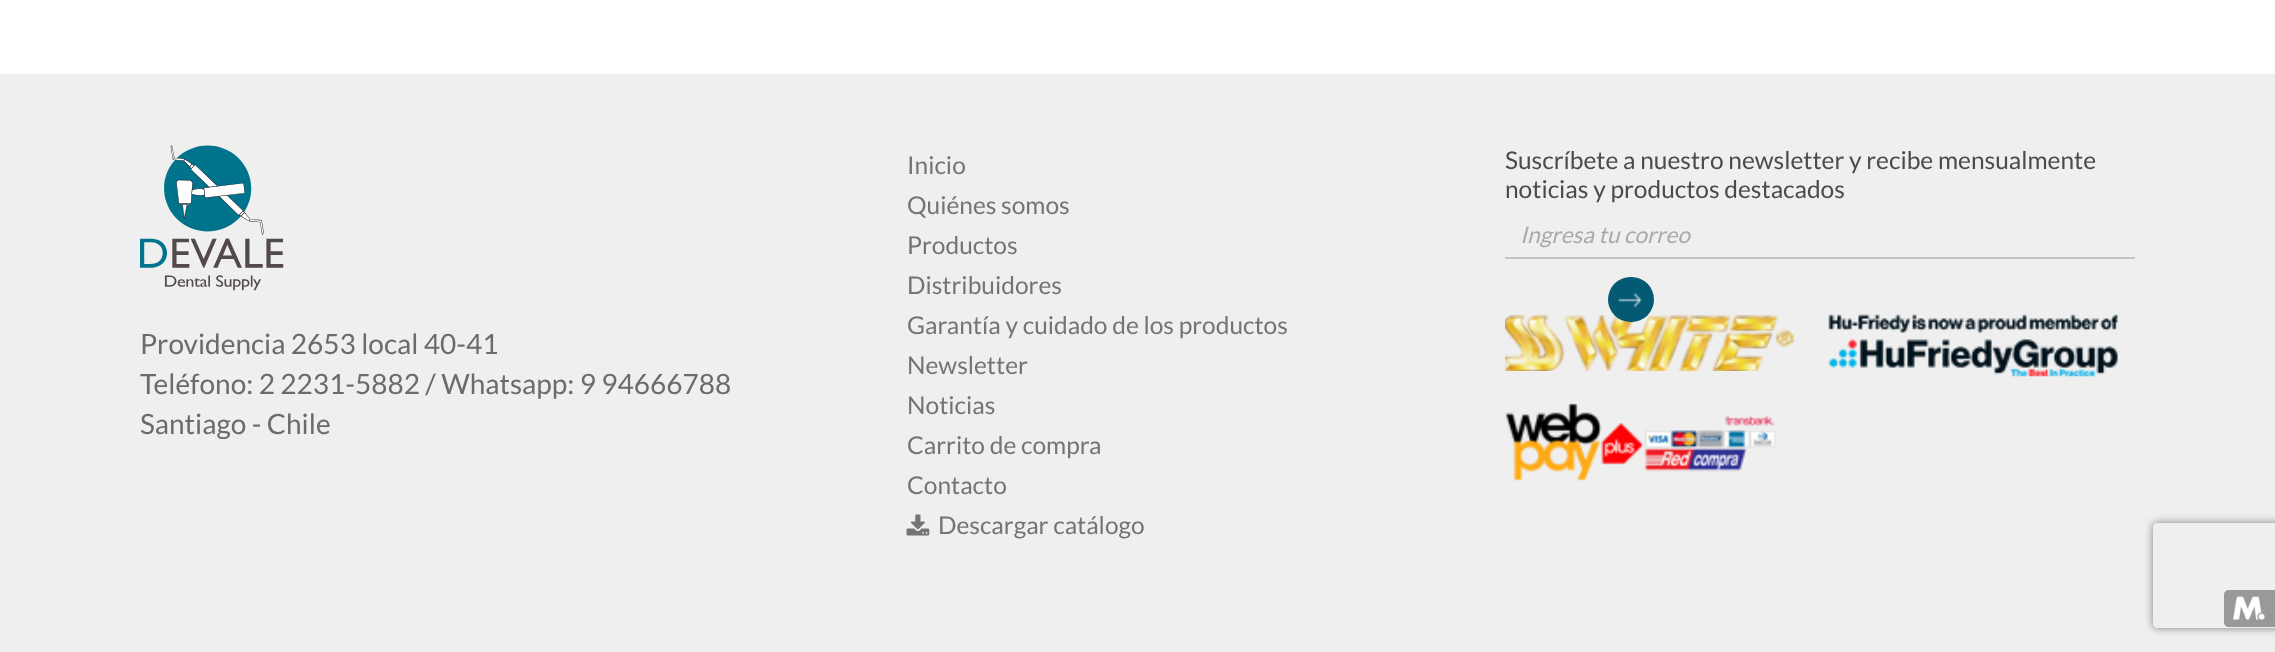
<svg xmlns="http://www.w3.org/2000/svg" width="2275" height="652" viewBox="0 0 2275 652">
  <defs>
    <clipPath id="clip1"><path d="M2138 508H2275V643H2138ZM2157 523H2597C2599 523 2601 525 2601 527V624C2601 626 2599 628 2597 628H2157C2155 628 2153 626 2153 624V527C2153 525 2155 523 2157 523Z" clip-rule="evenodd"/></clipPath>
    <filter id="blur1" x="-50%" y="-200%" width="200%" height="500%"><feGaussianBlur stdDeviation="4.5"/></filter>
  </defs>
  <rect width="100%" height="100%" fill="#ffffff"/>
  <rect x="0" y="74" width="2275" height="578" fill="#efefef"/>
  <image x="140" y="145" width="144" height="146" href="img1.png"/>
  <text x="140" y="354" font-family="Lato" font-size="28" fill="#6b6b6b">Providencia 2653 local 40-41</text>
  <text x="140" y="394" font-family="Lato" font-size="28" fill="#6b6b6b">Teléfono: 2 2231-5882 / Whatsapp: 9 94666788</text>
  <text x="140" y="434" font-family="Lato" font-size="28" fill="#6b6b6b">Santiago - Chile</text>
  <text x="907" y="174" font-family="Lato" font-size="24.5" fill="#747474">Inicio</text>
  <text x="907" y="214" font-family="Lato" font-size="24.5" fill="#747474">Quiénes somos</text>
  <text x="907" y="254" font-family="Lato" font-size="24.5" fill="#747474">Productos</text>
  <text x="907" y="294" font-family="Lato" font-size="24.5" fill="#747474">Distribuidores</text>
  <text x="907" y="334" font-family="Lato" font-size="24.5" fill="#747474">Garantía y cuidado de los productos</text>
  <text x="907" y="374" font-family="Lato" font-size="24.5" fill="#747474">Newsletter</text>
  <text x="907" y="414" font-family="Lato" font-size="24.5" fill="#747474">Noticias</text>
  <text x="907" y="454" font-family="Lato" font-size="24.5" fill="#747474">Carrito de compra</text>
  <text x="907" y="494" font-family="Lato" font-size="24.5" fill="#747474">Contacto</text>
  <image x="906" y="514" width="24" height="22" href="img2.png"/>
  <text x="938" y="534" font-family="Lato" font-size="24.5" fill="#747474">Descargar catálogo</text>
  <text x="1505" y="169" font-family="Lato" font-size="24.5" fill="#4b4b4b">Suscríbete a nuestro newsletter y recibe mensualmente</text>
  <text x="1505" y="198" font-family="Lato" font-size="24.5" fill="#4b4b4b">noticias y productos destacados</text>
  <rect x="1505" y="257" width="630" height="2" fill="#c2c2c2"/>
  <text x="1520" y="243" font-family="Lato" font-size="22.75" font-style="italic" fill="#aaaaaa">Ingresa tu correo</text>
  <image x="1505" y="315" width="289" height="56" href="img4.png"/>
  <rect x="1608" y="277" width="46" height="45" rx="22.5" fill="#055a73"/>
  <image x="1618" y="292" width="24" height="16" href="img3.png"/>
  <image x="1828" y="314" width="290" height="63" href="img5.png"/>
  <image x="1505" y="403" width="271" height="79" href="img6.png"/>
  <g clip-path="url(#clip1)">
    <rect x="2153" y="523" width="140" height="105" rx="4" fill="#808080" filter="url(#blur1)"/>
  </g>
  <path d="M2229 590H2275V627H2229C2226 627 2224 625 2224 622V595C2224 592 2226 590 2229 590Z" fill="#999999"/>
  <image x="2233" y="596" width="32" height="24" href="img7.png"/>
</svg>
